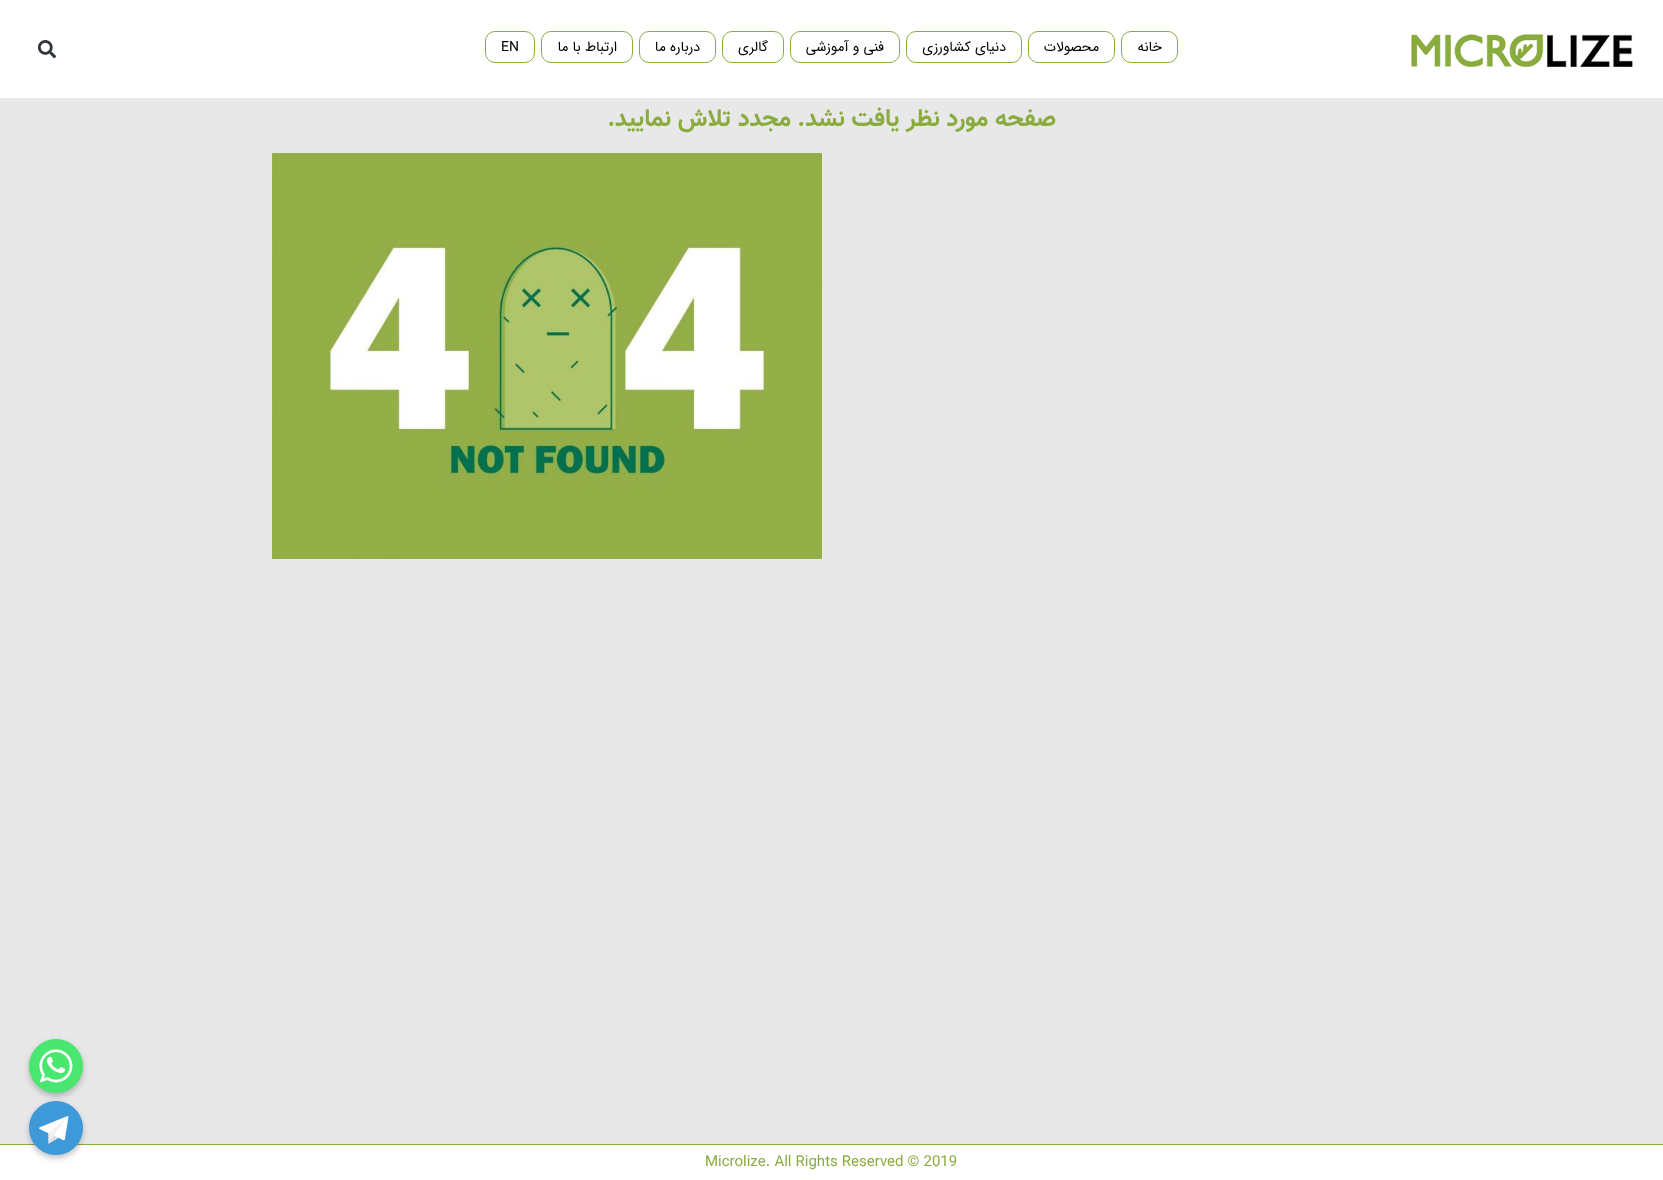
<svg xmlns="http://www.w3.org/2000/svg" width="1663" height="1180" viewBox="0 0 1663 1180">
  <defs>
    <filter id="blur1" x="-50%" y="-200%" width="200%" height="500%"><feGaussianBlur stdDeviation="3"/></filter>
  </defs>
  <rect width="100%" height="100%" fill="#ffffff"/>
  <image x="1411" y="34" width="222" height="33" href="img1.png"/>
  <rect x="1121.5" y="31.5" width="56" height="31" rx="9.5" fill="none" stroke="#8aac3f"/>
  <text x="1162" y="51" font-family="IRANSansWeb" font-size="14" direction="rtl" fill="#000000">خانه</text>
  <rect x="1028.5" y="31.5" width="86" height="31" rx="9.5" fill="none" stroke="#8aac3f"/>
  <text x="1099" y="51" font-family="IRANSansWeb" font-size="14" direction="rtl" fill="#000000">محصولات</text>
  <rect x="906.5" y="31.5" width="115" height="31" rx="9.5" fill="none" stroke="#8aac3f"/>
  <text x="1006" y="51" font-family="IRANSansWeb" font-size="14" direction="rtl" fill="#000000">دنیای کشاورزی</text>
  <rect x="790.5" y="31.5" width="109" height="31" rx="9.5" fill="none" stroke="#8aac3f"/>
  <text x="884" y="51" font-family="IRANSansWeb" font-size="14" direction="rtl" fill="#000000">فنی و آموزشی</text>
  <rect x="722.5" y="31.5" width="61" height="31" rx="9.5" fill="none" stroke="#8aac3f"/>
  <text x="768" y="51" font-family="IRANSansWeb" font-size="14" direction="rtl" fill="#000000">گالری</text>
  <rect x="639.5" y="31.5" width="76" height="31" rx="9.5" fill="none" stroke="#8aac3f"/>
  <text x="700" y="51" font-family="IRANSansWeb" font-size="14" direction="rtl" fill="#000000">درباره ما</text>
  <rect x="541.5" y="31.5" width="91" height="31" rx="9.5" fill="none" stroke="#8aac3f"/>
  <text x="617" y="51" font-family="IRANSansWeb" font-size="14" direction="rtl" fill="#000000">ارتباط با ما</text>
  <rect x="485.5" y="31.5" width="49" height="31" rx="9.5" fill="none" stroke="#8aac3f"/>
  <text x="501" y="51" font-family="IRANSansWeb" font-size="14" fill="#000000">EN</text>
  <image x="37" y="40" width="19" height="19" href="img2.png"/>
  <rect x="0" y="98" width="1663" height="1046" fill="#e8e8e8"/>
  <text x="1056" y="126" font-family="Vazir" font-size="24.5" font-weight="bold" direction="rtl" fill="#8aac3f">صفحه مورد نظر یافت نشد. مجدد تلاش نمایید.</text>
  <image x="272" y="153" width="550" height="406" href="img3.png"/>
  <rect x="0" y="1144" width="1663" height="1" fill="#8aac3f"/>
  <text x="705" y="1166" font-family="Vazir" font-size="15" fill="#8aac3f">Microlize. All Rights Reserved © 2019</text>
  <rect x="29" y="1042" width="54" height="54" rx="27" fill="#000000" fill-opacity="0.25" filter="url(#blur1)"/>
  <image x="29" y="1039" width="54" height="54" href="img4.png"/>
  <rect x="29" y="1104" width="54" height="54" rx="27" fill="#000000" fill-opacity="0.25" filter="url(#blur1)"/>
  <image x="29" y="1101" width="54" height="54" href="img5.png"/>
</svg>
